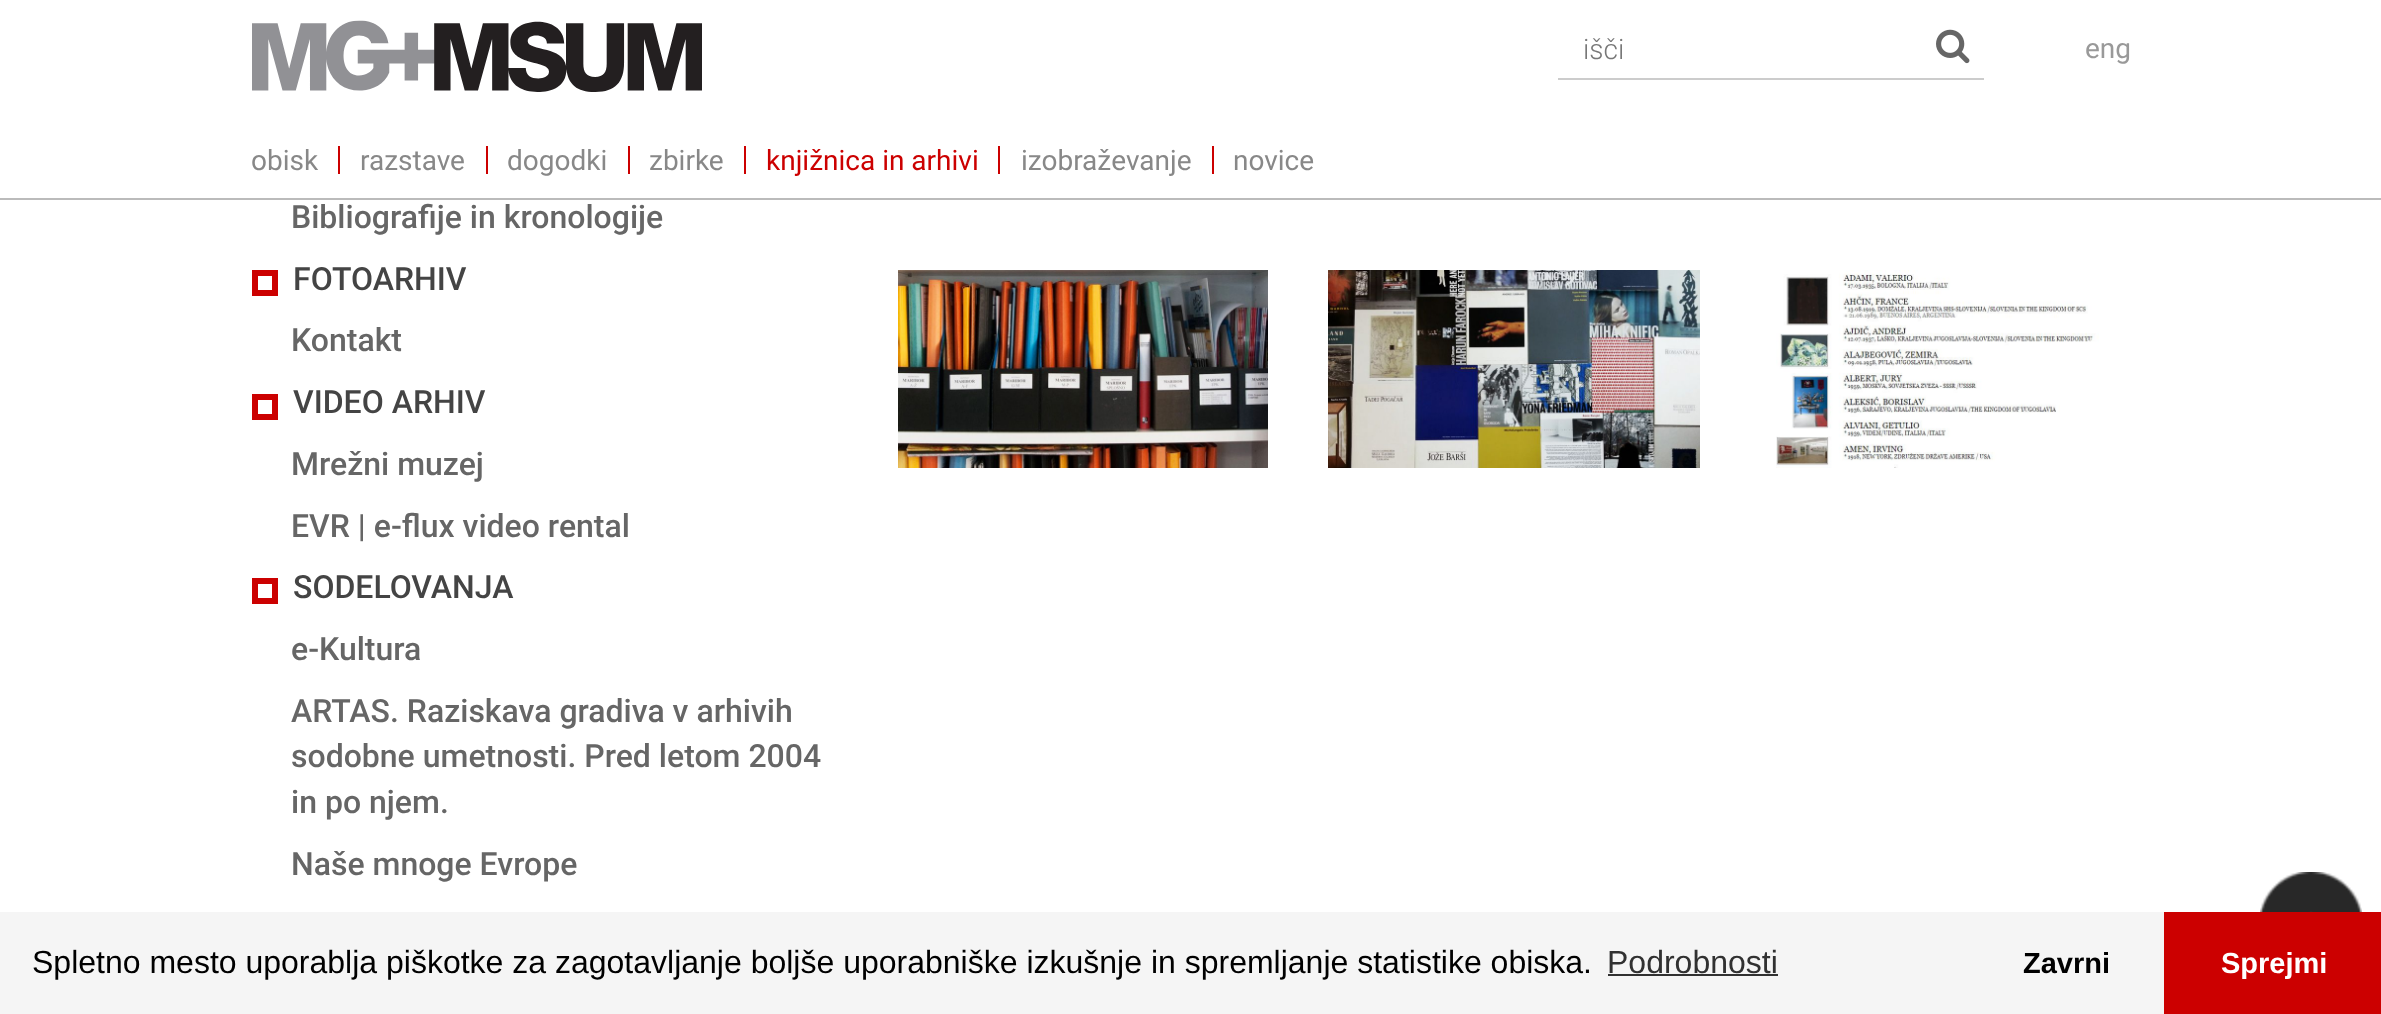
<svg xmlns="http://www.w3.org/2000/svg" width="2381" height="1014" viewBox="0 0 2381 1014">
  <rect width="100%" height="100%" fill="#ffffff"/>
  <rect x="0" y="198" width="2381" height="2" fill="#bbbbbb"/>
  <image x="252" y="20" width="450" height="72" href="img1.png"/>
  <rect x="1558" y="78" width="426" height="2" fill="#cccccc"/>
  <text x="1583" y="59" font-family="Roboto" font-size="28" font-weight="300" fill="#777777">išči</text>
  <image x="1936" y="29" width="34" height="35" href="img2.png"/>
  <text x="2085" y="58" font-family="Roboto" font-size="28" fill="#999999">eng</text>
  <rect x="338" y="146" width="2" height="28" fill="#cc0000"/>
  <text x="251" y="170" font-family="Roboto" font-size="28" fill="#888888">obisk</text>
  <rect x="486" y="146" width="2" height="28" fill="#cc0000"/>
  <text x="360" y="170" font-family="Roboto" font-size="28" fill="#888888">razstave</text>
  <rect x="628" y="146" width="2" height="28" fill="#cc0000"/>
  <text x="507" y="170" font-family="Roboto" font-size="28" fill="#888888">dogodki</text>
  <rect x="744" y="146" width="2" height="28" fill="#cc0000"/>
  <text x="649" y="170" font-family="Roboto" font-size="28" fill="#888888">zbirke</text>
  <rect x="998" y="146" width="2" height="28" fill="#cc0000"/>
  <text x="766" y="170" font-family="Roboto" font-size="28" fill="#cc0000">knjižnica in arhivi</text>
  <rect x="1212" y="146" width="2" height="28" fill="#cc0000"/>
  <text x="1021" y="170" font-family="Roboto" font-size="28" fill="#888888">izobraževanje</text>
  <text x="1233" y="170" font-family="Roboto" font-size="28" fill="#888888">novice</text>
  <text x="291" y="228" font-family="Roboto" font-size="32" font-weight="500" fill="#666666">Bibliografije in kronologije</text>
  <rect x="255" y="273" width="20" height="20" fill="none" stroke="#cc0000" stroke-width="6"/>
  <text x="293" y="290" font-family="Roboto" font-size="32" font-weight="500" fill="#444444">FOTOARHIV</text>
  <text x="291" y="351" font-family="Roboto" font-size="32" font-weight="500" fill="#666666">Kontakt</text>
  <rect x="255" y="397" width="20" height="20" fill="none" stroke="#cc0000" stroke-width="6"/>
  <text x="293" y="413" font-family="Roboto" font-size="32" font-weight="500" fill="#444444">VIDEO ARHIV</text>
  <text x="291" y="475" font-family="Roboto" font-size="32" font-weight="500" fill="#666666">Mrežni muzej</text>
  <text x="291" y="537" font-family="Roboto" font-size="32" font-weight="500" fill="#666666">EVR | e-flux video rental</text>
  <rect x="255" y="581" width="20" height="20" fill="none" stroke="#cc0000" stroke-width="6"/>
  <text x="293" y="598" font-family="Roboto" font-size="32" font-weight="500" fill="#444444">SODELOVANJA</text>
  <text x="291" y="660" font-family="Roboto" font-size="32" font-weight="500" fill="#666666">e-Kultura</text>
  <text x="291" y="722" font-family="Roboto" font-size="32" font-weight="500" fill="#666666">ARTAS. Raziskava gradiva v arhivih</text>
  <text x="291" y="767" font-family="Roboto" font-size="32" font-weight="500" fill="#666666">sodobne umetnosti. Pred letom 2004</text>
  <text x="291" y="813" font-family="Roboto" font-size="32" font-weight="500" fill="#666666">in po njem.</text>
  <text x="291" y="875" font-family="Roboto" font-size="32" font-weight="500" fill="#666666">Naše mnoge Evrope</text>
  <image x="898" y="270" width="370" height="198" href="img3.png"/>
  <image x="1328" y="270" width="372" height="198" href="img4.png"/>
  <image x="1776" y="270" width="323" height="198" href="img5.png"/>
  <image x="2260" y="872" width="102" height="40" href="img6.png"/>
  <rect x="0" y="912" width="2164" height="102" fill="#f5f5f5"/>
  <text x="32" y="973" font-family="Liberation Sans" font-size="32" fill="#000000">Spletno mesto uporablja piškotke za zagotavljanje boljše uporabniške izkušnje in spremljanje statistike obiska.</text>
  <text x="1607" y="973" font-family="Liberation Sans" font-size="32" fill="#313131">Podrobnosti</text>
  <rect x="1608" y="974" width="170" height="2" fill="#313131"/>
  <text x="2023" y="973" font-family="Liberation Sans" font-size="29" font-weight="bold" fill="#000000">Zavrni</text>
  <rect x="2164" y="912" width="217" height="102" fill="#cc0000"/>
  <text x="2221" y="973" font-family="Liberation Sans" font-size="29" font-weight="bold" fill="#ffffff">Sprejmi</text>
</svg>
